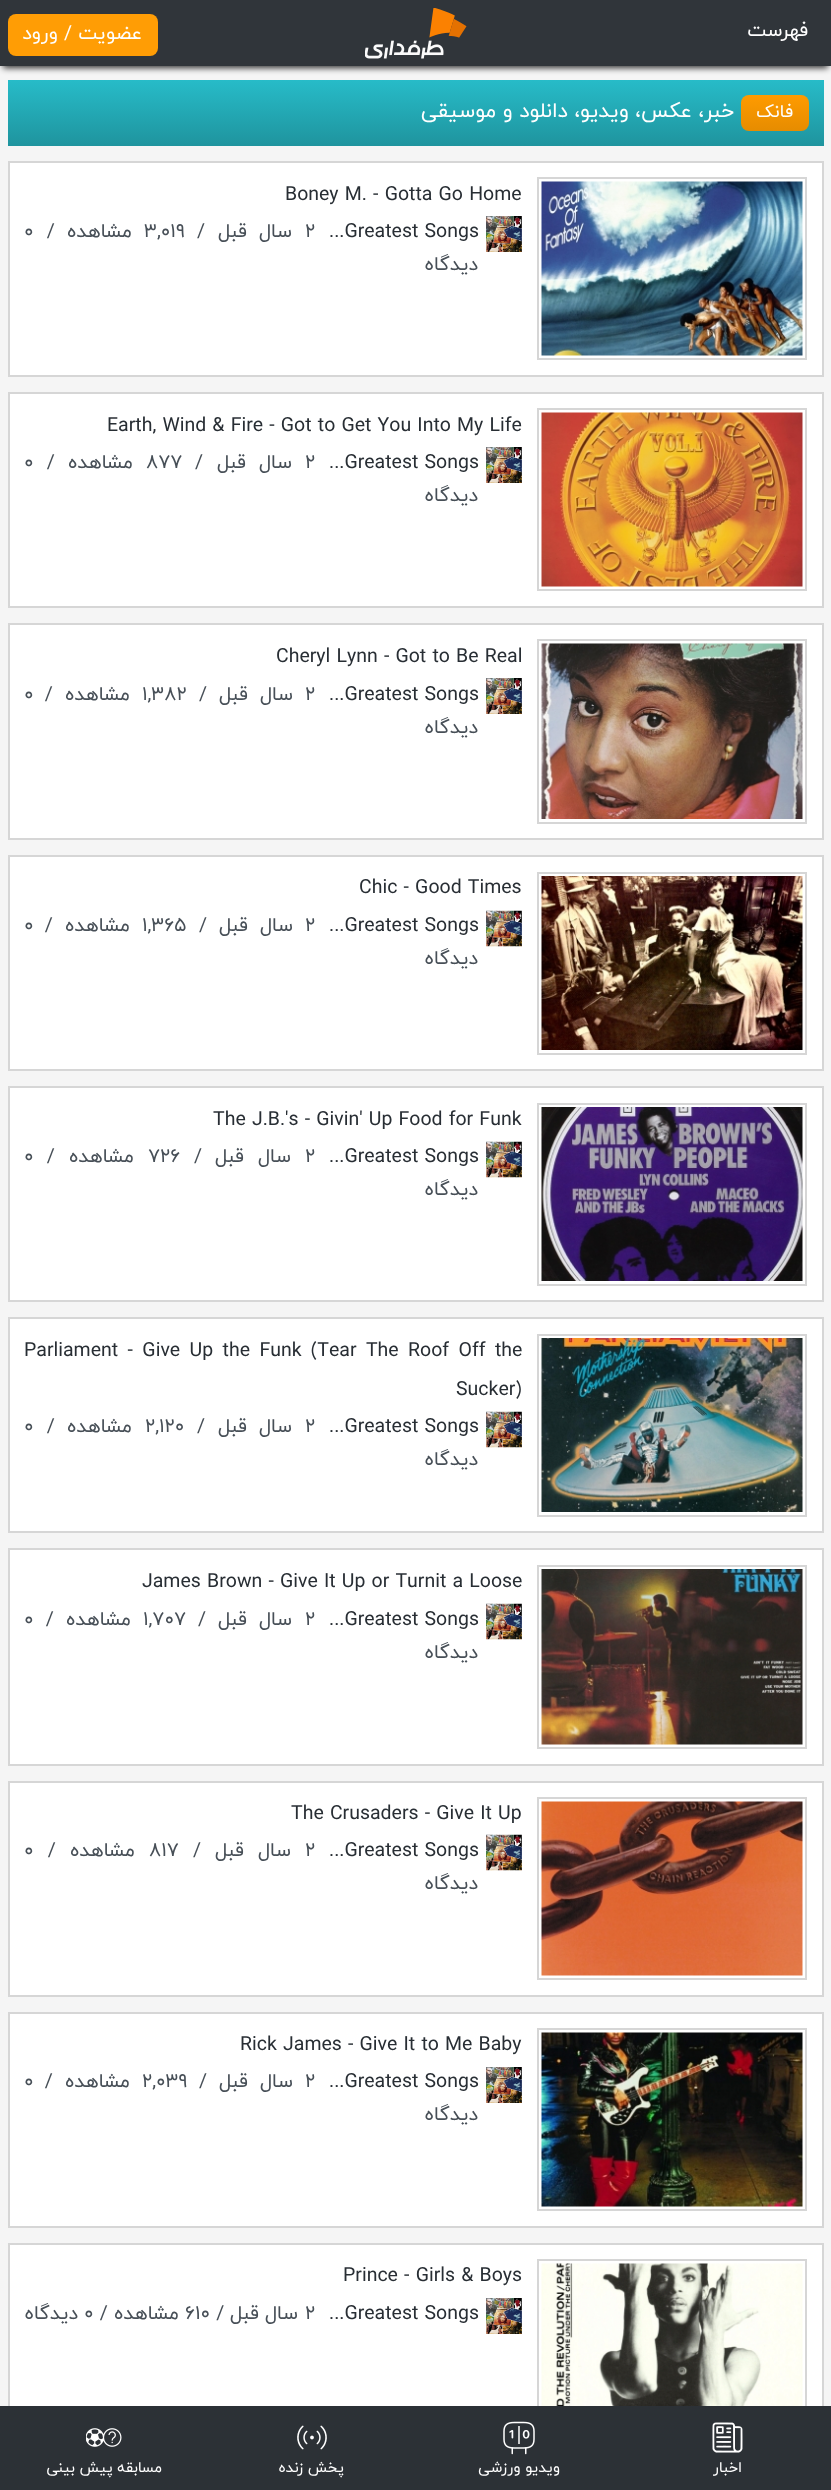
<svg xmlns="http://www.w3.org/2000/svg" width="831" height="2490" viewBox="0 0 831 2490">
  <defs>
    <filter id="blur1" x="-50%" y="-200%" width="200%" height="500%"><feGaussianBlur stdDeviation="3"/></filter>
    <linearGradient id="g1" gradientUnits="userSpaceOnUse" x1="416" y1="79" x2="416" y2="146"><stop offset="0" stop-color="#27bcc9"/><stop offset="1" stop-color="#1f949e"/></linearGradient>
    <linearGradient id="g2" gradientUnits="userSpaceOnUse" x1="775" y1="95" x2="775" y2="131"><stop offset="0" stop-color="#ff9b00"/><stop offset="1" stop-color="#e68c00"/></linearGradient>
  </defs>
  <rect width="100%" height="100%" fill="#f5f5f5"/>
  <rect x="3" y="8" width="825" height="60" fill="#050505" fill-opacity="0.8" filter="url(#blur1)"/>
  <rect x="0" y="0" width="831" height="66" fill="#30353a"/>
  <rect x="8" y="14" width="150" height="42" rx="8" fill="#ff9d05"/>
  <text x="142" y="39" font-family="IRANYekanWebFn" font-size="19.5" direction="rtl" fill="#ffffff">عضویت / ورود</text>
  <image x="365" y="8" width="102" height="51" href="img1.png"/>
  <text x="808" y="36" font-family="IRANYekanWebFn" font-size="19.5" direction="rtl" fill="#ffffff">فهرست</text>
  <rect x="8" y="80" width="816" height="66" fill="url(#g1)"/>
  <text x="734" y="117" font-family="IRANYekanWebFn" font-size="21" direction="rtl" fill="#ffffff">خبر، عکس، ویدیو، دانلود و موسیقی</text>
  <rect x="741" y="95" width="68" height="36" rx="8" fill="url(#g2)"/>
  <text x="793" y="117" font-family="IRANYekanWebFn" font-size="18" direction="rtl" fill="#ffffff">فانک</text>
  <rect x="9" y="162" width="814" height="214" fill="#ffffff" stroke="#d6d6d6" stroke-width="2"/>
  <text x="285" y="200" font-family="IRANYekanWebFn" font-size="19.5" fill="#282e34">Boney M. - Gotta Go Home</text>
  <rect x="538" y="178" width="268" height="181" fill="none" stroke="#d6d6d6" stroke-width="2"/>
  <image x="541" y="181" width="262" height="175" href="img2.png"/>
  <text x="24" y="237" font-family="IRANYekanWebFn" font-size="19.5" fill="#474f57">0</text>
  <text x="132" y="237" word-spacing="6" font-family="IRANYekanWebFn" font-size="19.5" direction="rtl" fill="#474f57">مشاهده /</text>
  <text x="144" y="237" font-family="IRANYekanWebFn" font-size="19.5" fill="#474f57">3,019</text>
  <text x="197" y="237" font-family="IRANYekanWebFn" font-size="19.5" fill="#474f57">/</text>
  <text x="292" y="237" word-spacing="6" font-family="IRANYekanWebFn" font-size="19.5" direction="rtl" fill="#474f57">سال قبل</text>
  <text x="305" y="237" font-family="IRANYekanWebFn" font-size="19.5" fill="#474f57">2</text>
  <text x="329" y="237" font-family="IRANYekanWebFn" font-size="19.5" fill="#282e34">...Greatest Songs</text>
  <image x="486" y="216" width="36" height="36" href="img3.png"/>
  <text x="478" y="270" font-family="IRANYekanWebFn" font-size="19.5" direction="rtl" fill="#474f57">دیدگاه</text>
  <rect x="9" y="393" width="814" height="214" fill="#ffffff" stroke="#d6d6d6" stroke-width="2"/>
  <text x="107" y="431" font-family="IRANYekanWebFn" font-size="19.5" fill="#282e34">Earth, Wind &amp; Fire - Got to Get You Into My Life</text>
  <rect x="538" y="409" width="268" height="181" fill="none" stroke="#d6d6d6" stroke-width="2"/>
  <image x="541" y="412" width="262" height="175" href="img4.png"/>
  <text x="24" y="468" font-family="IRANYekanWebFn" font-size="19.5" fill="#474f57">0</text>
  <text x="133" y="468" word-spacing="7" font-family="IRANYekanWebFn" font-size="19.5" direction="rtl" fill="#474f57">مشاهده /</text>
  <text x="146" y="468" font-family="IRANYekanWebFn" font-size="19.5" fill="#474f57">877</text>
  <text x="195" y="468" font-family="IRANYekanWebFn" font-size="19.5" fill="#474f57">/</text>
  <text x="292" y="468" word-spacing="7" font-family="IRANYekanWebFn" font-size="19.5" direction="rtl" fill="#474f57">سال قبل</text>
  <text x="305" y="468" font-family="IRANYekanWebFn" font-size="19.5" fill="#474f57">2</text>
  <text x="329" y="468" font-family="IRANYekanWebFn" font-size="19.5" fill="#282e34">...Greatest Songs</text>
  <image x="486" y="447" width="36" height="36" href="img3.png"/>
  <text x="478" y="501" font-family="IRANYekanWebFn" font-size="19.5" direction="rtl" fill="#474f57">دیدگاه</text>
  <rect x="9" y="624" width="814" height="215" fill="#ffffff" stroke="#d6d6d6" stroke-width="2"/>
  <text x="276" y="662" font-family="IRANYekanWebFn" font-size="19.5" fill="#282e34">Cheryl Lynn - Got to Be Real</text>
  <rect x="538" y="640" width="268" height="183" fill="none" stroke="#d6d6d6" stroke-width="2"/>
  <image x="541" y="643" width="262" height="176" href="img5.png"/>
  <text x="24" y="700" font-family="IRANYekanWebFn" font-size="19.5" fill="#474f57">0</text>
  <text x="130" y="700" word-spacing="6" font-family="IRANYekanWebFn" font-size="19.5" direction="rtl" fill="#474f57">مشاهده /</text>
  <text x="142" y="700" font-family="IRANYekanWebFn" font-size="19.5" fill="#474f57">1,382</text>
  <text x="199" y="700" font-family="IRANYekanWebFn" font-size="19.5" fill="#474f57">/</text>
  <text x="293" y="700" word-spacing="6" font-family="IRANYekanWebFn" font-size="19.5" direction="rtl" fill="#474f57">سال قبل</text>
  <text x="305" y="700" font-family="IRANYekanWebFn" font-size="19.5" fill="#474f57">2</text>
  <text x="329" y="700" font-family="IRANYekanWebFn" font-size="19.5" fill="#282e34">...Greatest Songs</text>
  <image x="486" y="678" width="36" height="36" href="img3.png"/>
  <text x="478" y="733" font-family="IRANYekanWebFn" font-size="19.5" direction="rtl" fill="#474f57">دیدگاه</text>
  <rect x="9" y="856" width="814" height="214" fill="#ffffff" stroke="#d6d6d6" stroke-width="2"/>
  <text x="359" y="893" font-family="IRANYekanWebFn" font-size="19.5" fill="#282e34">Chic - Good Times</text>
  <rect x="538" y="873" width="268" height="181" fill="none" stroke="#d6d6d6" stroke-width="2"/>
  <image x="541" y="876" width="262" height="174" href="img6.png"/>
  <text x="24" y="931" font-family="IRANYekanWebFn" font-size="19.5" fill="#474f57">0</text>
  <text x="130" y="931" word-spacing="6" font-family="IRANYekanWebFn" font-size="19.5" direction="rtl" fill="#474f57">مشاهده /</text>
  <text x="142" y="931" font-family="IRANYekanWebFn" font-size="19.5" fill="#474f57">1,365</text>
  <text x="199" y="931" font-family="IRANYekanWebFn" font-size="19.5" fill="#474f57">/</text>
  <text x="293" y="931" word-spacing="6" font-family="IRANYekanWebFn" font-size="19.5" direction="rtl" fill="#474f57">سال قبل</text>
  <text x="305" y="931" font-family="IRANYekanWebFn" font-size="19.5" fill="#474f57">2</text>
  <text x="329" y="931" font-family="IRANYekanWebFn" font-size="19.5" fill="#282e34">...Greatest Songs</text>
  <image x="486" y="910" width="36" height="37" href="img7.png"/>
  <text x="478" y="964" font-family="IRANYekanWebFn" font-size="19.5" direction="rtl" fill="#474f57">دیدگاه</text>
  <rect x="9" y="1087" width="814" height="214" fill="#ffffff" stroke="#d6d6d6" stroke-width="2"/>
  <text x="213" y="1125" font-family="IRANYekanWebFn" font-size="19.5" fill="#282e34">The J.B.'s - Givin' Up Food for Funk</text>
  <rect x="538" y="1104" width="268" height="181" fill="none" stroke="#d6d6d6" stroke-width="2"/>
  <image x="541" y="1107" width="262" height="174" href="img8.png"/>
  <text x="24" y="1162" font-family="IRANYekanWebFn" font-size="19.5" fill="#474f57">0</text>
  <text x="134" y="1162" word-spacing="8" font-family="IRANYekanWebFn" font-size="19.5" direction="rtl" fill="#474f57">مشاهده /</text>
  <text x="148" y="1162" font-family="IRANYekanWebFn" font-size="19.5" fill="#474f57">726</text>
  <text x="194" y="1162" font-family="IRANYekanWebFn" font-size="19.5" fill="#474f57">/</text>
  <text x="291" y="1162" word-spacing="8" font-family="IRANYekanWebFn" font-size="19.5" direction="rtl" fill="#474f57">سال قبل</text>
  <text x="305" y="1162" font-family="IRANYekanWebFn" font-size="19.5" fill="#474f57">2</text>
  <text x="329" y="1162" font-family="IRANYekanWebFn" font-size="19.5" fill="#282e34">...Greatest Songs</text>
  <image x="486" y="1141" width="36" height="37" href="img7.png"/>
  <text x="478" y="1195" font-family="IRANYekanWebFn" font-size="19.5" direction="rtl" fill="#474f57">دیدگاه</text>
  <rect x="9" y="1318" width="814" height="214" fill="#ffffff" stroke="#d6d6d6" stroke-width="2"/>
  <text x="24" y="1356" word-spacing="3.25" font-family="IRANYekanWebFn" font-size="19.5" fill="#282e34">Parliament - Give Up the Funk (Tear The Roof Off the</text>
  <text x="456" y="1395" font-family="IRANYekanWebFn" font-size="19.5" fill="#282e34">Sucker)</text>
  <rect x="538" y="1335" width="268" height="181" fill="none" stroke="#d6d6d6" stroke-width="2"/>
  <image x="541" y="1338" width="262" height="174" href="img9.png"/>
  <text x="24" y="1432" font-family="IRANYekanWebFn" font-size="19.5" fill="#474f57">0</text>
  <text x="132" y="1432" word-spacing="6" font-family="IRANYekanWebFn" font-size="19.5" direction="rtl" fill="#474f57">مشاهده /</text>
  <text x="145" y="1432" font-family="IRANYekanWebFn" font-size="19.5" fill="#474f57">2,120</text>
  <text x="197" y="1432" font-family="IRANYekanWebFn" font-size="19.5" fill="#474f57">/</text>
  <text x="292" y="1432" word-spacing="6" font-family="IRANYekanWebFn" font-size="19.5" direction="rtl" fill="#474f57">سال قبل</text>
  <text x="305" y="1432" font-family="IRANYekanWebFn" font-size="19.5" fill="#474f57">2</text>
  <text x="329" y="1432" font-family="IRANYekanWebFn" font-size="19.5" fill="#282e34">...Greatest Songs</text>
  <image x="486" y="1411" width="36" height="37" href="img7.png"/>
  <text x="478" y="1465" font-family="IRANYekanWebFn" font-size="19.5" direction="rtl" fill="#474f57">دیدگاه</text>
  <rect x="9" y="1549" width="814" height="216" fill="#ffffff" stroke="#d6d6d6" stroke-width="2"/>
  <text x="142" y="1587" font-family="IRANYekanWebFn" font-size="19.5" fill="#282e34">James Brown - Give It Up or Turnit a Loose</text>
  <rect x="538" y="1566" width="268" height="182" fill="none" stroke="#d6d6d6" stroke-width="2"/>
  <image x="541" y="1569" width="262" height="176" href="img10.png"/>
  <text x="24" y="1625" font-family="IRANYekanWebFn" font-size="19.5" fill="#474f57">0</text>
  <text x="131" y="1625" word-spacing="6" font-family="IRANYekanWebFn" font-size="19.5" direction="rtl" fill="#474f57">مشاهده /</text>
  <text x="143" y="1625" font-family="IRANYekanWebFn" font-size="19.5" fill="#474f57">1,707</text>
  <text x="198" y="1625" font-family="IRANYekanWebFn" font-size="19.5" fill="#474f57">/</text>
  <text x="292" y="1625" word-spacing="6" font-family="IRANYekanWebFn" font-size="19.5" direction="rtl" fill="#474f57">سال قبل</text>
  <text x="305" y="1625" font-family="IRANYekanWebFn" font-size="19.5" fill="#474f57">2</text>
  <text x="329" y="1625" font-family="IRANYekanWebFn" font-size="19.5" fill="#282e34">...Greatest Songs</text>
  <image x="486" y="1603" width="36" height="37" href="img7.png"/>
  <text x="478" y="1658" font-family="IRANYekanWebFn" font-size="19.5" direction="rtl" fill="#474f57">دیدگاه</text>
  <rect x="9" y="1782" width="814" height="214" fill="#ffffff" stroke="#d6d6d6" stroke-width="2"/>
  <text x="291" y="1819" font-family="IRANYekanWebFn" font-size="19.5" fill="#282e34">The Crusaders - Give It Up</text>
  <rect x="538" y="1798" width="268" height="181" fill="none" stroke="#d6d6d6" stroke-width="2"/>
  <image x="541" y="1801" width="262" height="175" href="img11.png"/>
  <text x="24" y="1856" font-family="IRANYekanWebFn" font-size="19.5" fill="#474f57">0</text>
  <text x="135" y="1856" word-spacing="8" font-family="IRANYekanWebFn" font-size="19.5" direction="rtl" fill="#474f57">مشاهده /</text>
  <text x="149" y="1856" font-family="IRANYekanWebFn" font-size="19.5" fill="#474f57">817</text>
  <text x="193" y="1856" font-family="IRANYekanWebFn" font-size="19.5" fill="#474f57">/</text>
  <text x="291" y="1856" word-spacing="8" font-family="IRANYekanWebFn" font-size="19.5" direction="rtl" fill="#474f57">سال قبل</text>
  <text x="305" y="1856" font-family="IRANYekanWebFn" font-size="19.5" fill="#474f57">2</text>
  <text x="329" y="1856" font-family="IRANYekanWebFn" font-size="19.5" fill="#282e34">...Greatest Songs</text>
  <image x="486" y="1834" width="36" height="37" href="img7.png"/>
  <text x="478" y="1889" font-family="IRANYekanWebFn" font-size="19.5" direction="rtl" fill="#474f57">دیدگاه</text>
  <rect x="9" y="2013" width="814" height="214" fill="#ffffff" stroke="#d6d6d6" stroke-width="2"/>
  <text x="240" y="2050" font-family="IRANYekanWebFn" font-size="19.5" fill="#282e34">Rick James - Give It to Me Baby</text>
  <rect x="538" y="2029" width="268" height="181" fill="none" stroke="#d6d6d6" stroke-width="2"/>
  <image x="541" y="2032" width="262" height="175" href="img12.png"/>
  <text x="24" y="2087" font-family="IRANYekanWebFn" font-size="19.5" fill="#474f57">0</text>
  <text x="130" y="2087" word-spacing="6" font-family="IRANYekanWebFn" font-size="19.5" direction="rtl" fill="#474f57">مشاهده /</text>
  <text x="142" y="2087" font-family="IRANYekanWebFn" font-size="19.5" fill="#474f57">2,039</text>
  <text x="199" y="2087" font-family="IRANYekanWebFn" font-size="19.5" fill="#474f57">/</text>
  <text x="293" y="2087" word-spacing="6" font-family="IRANYekanWebFn" font-size="19.5" direction="rtl" fill="#474f57">سال قبل</text>
  <text x="305" y="2087" font-family="IRANYekanWebFn" font-size="19.5" fill="#474f57">2</text>
  <text x="329" y="2087" font-family="IRANYekanWebFn" font-size="19.5" fill="#282e34">...Greatest Songs</text>
  <image x="486" y="2067" width="36" height="36" href="img3.png"/>
  <text x="478" y="2120" font-family="IRANYekanWebFn" font-size="19.5" direction="rtl" fill="#474f57">دیدگاه</text>
  <rect x="10" y="2245" width="812" height="161" fill="#ffffff"/>
  <rect x="9" y="2244" width="814" height="214" fill="none" stroke="#d6d6d6" stroke-width="2"/>
  <text x="343" y="2281" font-family="IRANYekanWebFn" font-size="19.5" fill="#282e34">Prince - Girls &amp; Boys</text>
  <rect x="538" y="2260" width="268" height="181" fill="none" stroke="#d6d6d6" stroke-width="2"/>
  <image x="541" y="2263" width="262" height="143" href="img13.png"/>
  <text x="78" y="2319" font-family="IRANYekanWebFn" font-size="19.5" direction="rtl" fill="#474f57">دیدگاه</text>
  <text x="84" y="2319" font-family="IRANYekanWebFn" font-size="19.5" fill="#474f57">0</text>
  <text x="179" y="2319" font-family="IRANYekanWebFn" font-size="19.5" direction="rtl" fill="#474f57">مشاهده /</text>
  <text x="185" y="2319" font-family="IRANYekanWebFn" font-size="19.5" fill="#474f57">610 /</text>
  <text x="298" y="2319" font-family="IRANYekanWebFn" font-size="19.5" direction="rtl" fill="#474f57">سال قبل</text>
  <text x="305" y="2319" font-family="IRANYekanWebFn" font-size="19.5" fill="#474f57">2</text>
  <text x="329" y="2319" font-family="IRANYekanWebFn" font-size="19.5" fill="#282e34">...Greatest Songs</text>
  <image x="486" y="2298" width="36" height="36" href="img14.png"/>
  <rect x="0" y="2406" width="831" height="84" fill="#2c3136"/>
  <image x="86" y="2428" width="36" height="19" href="img15.png"/>
  <text x="162" y="2472" font-family="IRANYekanWebFn" font-size="15" direction="rtl" fill="#ffffff">مسابقه پیش بینی</text>
  <image x="297" y="2425" width="30" height="25" href="img16.png"/>
  <text x="344" y="2472" font-family="IRANYekanWebFn" font-size="15" direction="rtl" fill="#ffffff">پخش زنده</text>
  <image x="503" y="2421" width="32" height="34" href="img17.png"/>
  <text x="560" y="2472" font-family="IRANYekanWebFn" font-size="15" direction="rtl" fill="#ffffff">ویدیو ورزشی</text>
  <image x="712" y="2422" width="31" height="31" href="img18.png"/>
  <text x="742" y="2472" font-family="IRANYekanWebFn" font-size="15" direction="rtl" fill="#ffffff">اخبار</text>
</svg>
